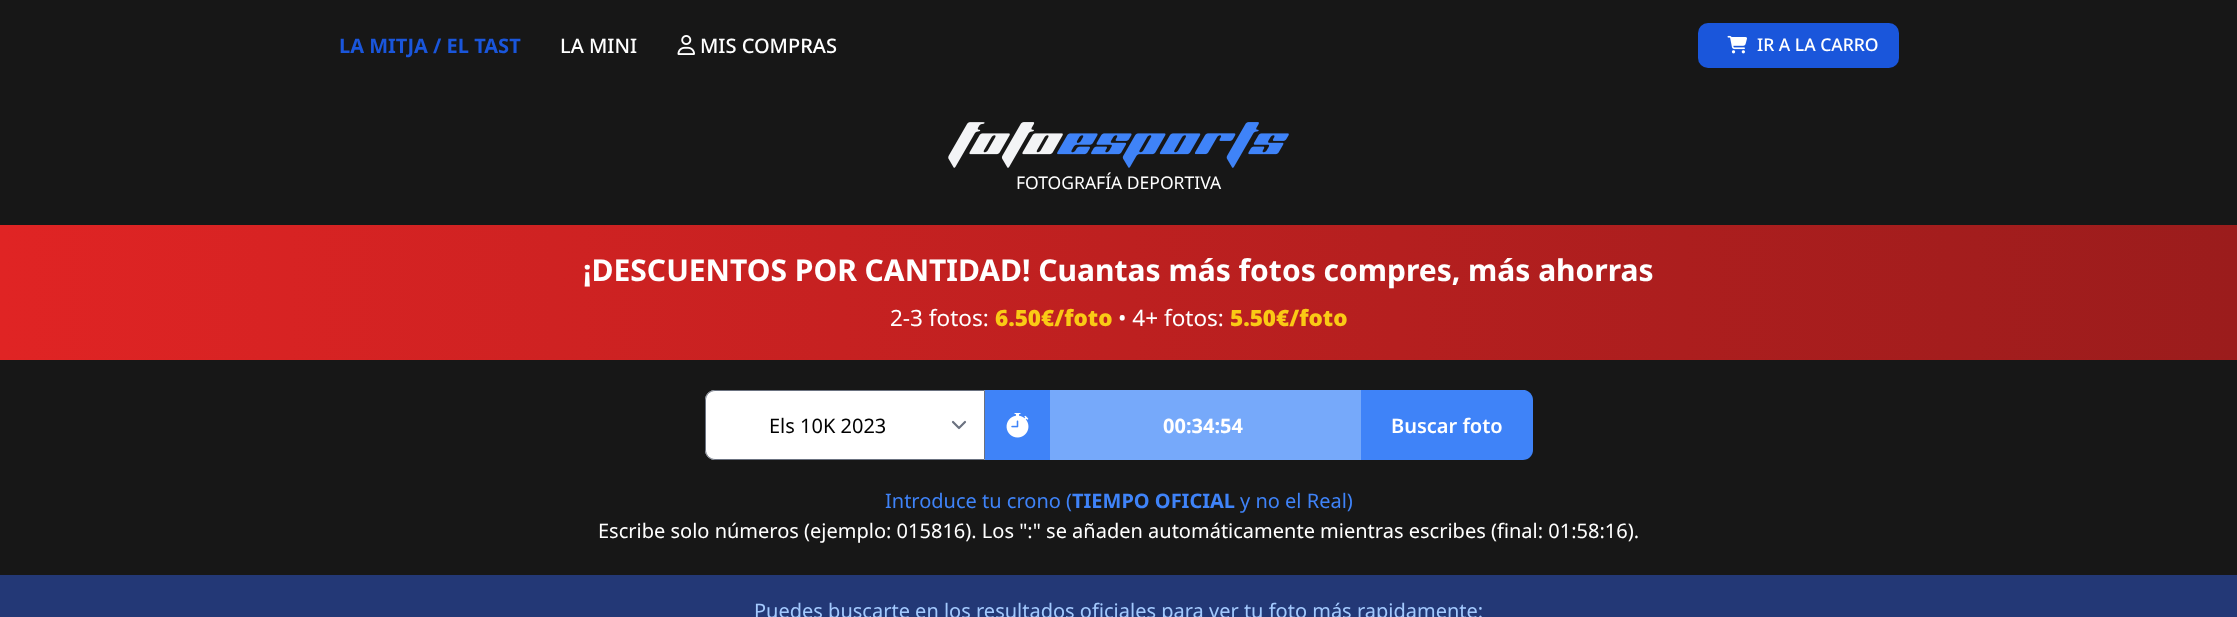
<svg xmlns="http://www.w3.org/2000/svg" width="2237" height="617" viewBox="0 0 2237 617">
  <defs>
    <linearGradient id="g1" gradientUnits="userSpaceOnUse" x1="0" y1="293" x2="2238" y2="292"><stop offset="0" stop-color="#e02424"/><stop offset="1" stop-color="#9b1c1c"/></linearGradient>
  </defs>
  <rect width="100%" height="100%" fill="#171717"/>
  <text x="339" y="53" font-family="Noto Sans" font-size="20" font-weight="bold" fill="#1a56db">LA MITJA / EL TAST</text>
  <text x="560" y="53" font-family="Noto Sans" font-size="20" font-weight="500" fill="#ffffff">LA MINI</text>
  <image x="677" y="35" width="18" height="20" href="img1.png"/>
  <text x="700" y="53" font-family="Noto Sans" font-size="20" font-weight="500" fill="#ffffff">MIS COMPRAS</text>
  <rect x="1698" y="23" width="201" height="45" rx="10" fill="#1a56db"/>
  <image x="1727" y="35" width="20" height="19" href="img2.png"/>
  <text x="1757" y="51" font-family="Noto Sans" font-size="17.5" font-weight="500" fill="#ffffff">IR A LA CARRO</text>
  <image x="948" y="122" width="341" height="46" href="img3.png"/>
  <text x="1016" y="189" font-family="Noto Sans" font-size="17.5" fill="#ffffff">FOTOGRAFÍA DEPORTIVA</text>
  <rect x="0" y="225" width="2237" height="135" fill="url(#g1)"/>
  <text x="583" y="281" font-family="Noto Sans" font-size="30" font-weight="bold" fill="#ffffff">¡DESCUENTOS POR CANTIDAD! Cuantas más fotos compres, más ahorras</text>
  <text x="890" y="326" font-family="Noto Sans" font-size="22.5" fill="#ffffff">2-3 fotos:</text>
  <text x="995" y="326" font-family="Noto Sans" font-size="22.5" font-weight="900" fill="#faca15">6.50€/foto</text>
  <text x="1118" y="326" font-family="Noto Sans" font-size="22.5" fill="#ffffff">• 4+ fotos:</text>
  <text x="1230" y="326" font-family="Noto Sans" font-size="22.5" font-weight="900" fill="#faca15">5.50€/foto</text>
  <path d="M715 390H985V460H715C709.5 460 705 455.5 705 450V400C705 394.5 709.5 390 715 390Z" fill="#ffffff"/>
  <path d="M953 422L959 428L965 422" fill="none" stroke="#6b7280" stroke-width="2.2" stroke-linecap="round" stroke-linejoin="round"/>
  <path d="M715 390.5H984.5V459.5H715C710 459.5 705.5 455 705.5 450V400C705.5 395 710 390.5 715 390.5Z" fill="none" stroke="#6b7280"/>
  <text x="769" y="433" font-family="Noto Sans" font-size="20" fill="#000000">Els 10K 2023</text>
  <rect x="985" y="390" width="65" height="70" fill="#3f83f8"/>
  <image x="1006" y="413" width="23" height="25" href="img4.png"/>
  <rect x="1050" y="390" width="311" height="70" fill="#76a9fa"/>
  <text x="1163" y="433" font-family="Noto Sans" font-size="20" font-weight="bold" fill="#ffffff">00:34:54</text>
  <path d="M1361 390H1523C1528.5 390 1533 394.5 1533 400V450C1533 455.5 1528.5 460 1523 460H1361Z" fill="#3f83f8"/>
  <text x="1391" y="433" font-family="Noto Sans" font-size="20" font-weight="600" fill="#ffffff">Buscar foto</text>
  <text x="885" y="508" font-family="Noto Sans" font-size="20" fill="#3f83f8">Introduce tu crono (</text>
  <text x="1072" y="508" font-family="Noto Sans" font-size="20" font-weight="bold" fill="#3f83f8">TIEMPO OFICIAL</text>
  <text x="1240" y="508" font-family="Noto Sans" font-size="20" fill="#3f83f8">y no el Real)</text>
  <text x="598" y="538" font-family="Noto Sans" font-size="20" fill="#ffffff">Escribe solo números (ejemplo: 015816). Los ":" se añaden automáticamente mientras escribes (final: 01:58:16).</text>
  <rect x="0" y="575" width="2237" height="42" fill="#233876"/>
  <text x="754" y="618" font-family="Noto Sans" font-size="20" fill="#a4cafe">Puedes buscarte en los resultados oficiales para ver tu foto más rapidamente:</text>
</svg>
